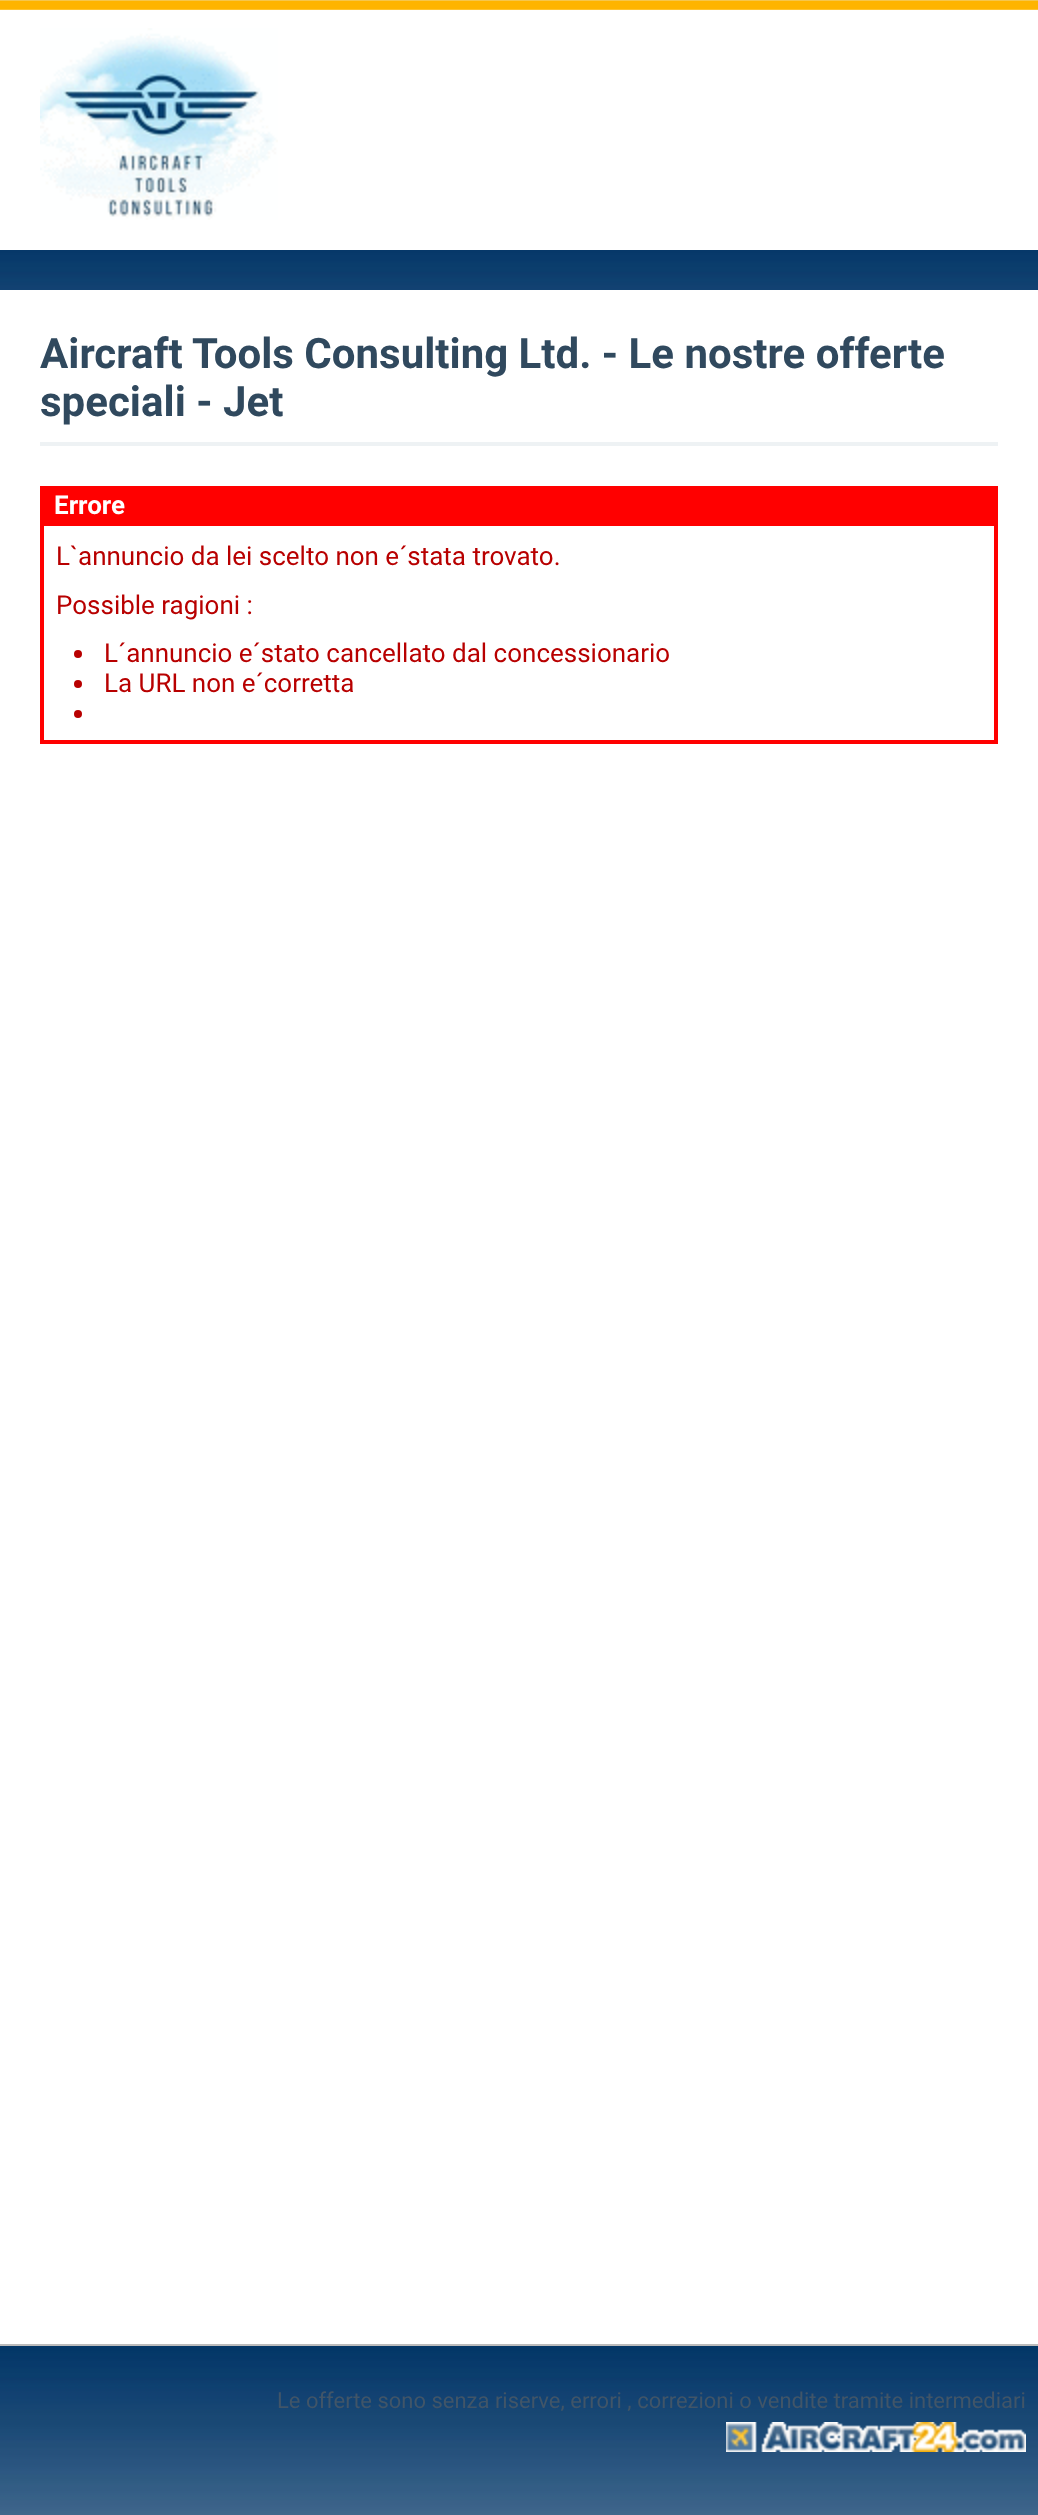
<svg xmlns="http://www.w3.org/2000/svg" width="1038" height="2515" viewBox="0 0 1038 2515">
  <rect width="100%" height="100%" fill="#ffffff"/>
  <image x="0" y="0" width="1038" height="2515" href="img1.png"/>
  <rect x="0" y="10" width="1038" height="240" fill="#ffffff"/>
  <image x="40" y="28" width="238" height="192" href="img2.png"/>
  <rect x="0" y="290" width="1038" height="2054" fill="#ffffff"/>
  <rect x="40" y="442" width="958" height="4" fill="#eef2f4"/>
  <text x="40" y="368" font-family="Roboto" font-size="42" font-weight="bold" fill="#30495e">Aircraft Tools Consulting Ltd. - Le nostre offerte</text>
  <text x="40" y="416" font-family="Roboto" font-size="42" font-weight="bold" fill="#30495e">speciali - Jet</text>
  <rect x="42" y="488" width="954" height="254" fill="none" stroke="#ff0000" stroke-width="4"/>
  <rect x="44" y="490" width="950" height="36" fill="#ff0000"/>
  <text x="54" y="514" font-family="Roboto" font-size="26" font-weight="bold" fill="#ffffff">Errore</text>
  <text x="56" y="565" font-family="Roboto" font-size="26" fill="#b80000">L`annuncio da lei scelto non e´stata trovato.</text>
  <text x="56" y="614" font-family="Roboto" font-size="26" fill="#b80000">Possible ragioni :</text>
  <circle cx="78" cy="654" r="4" fill="#b80000"/>
  <text x="104" y="662" font-family="Roboto" font-size="26" fill="#b80000">L´annuncio e´stato cancellato dal concessionario</text>
  <circle cx="78" cy="684" r="4" fill="#b80000"/>
  <text x="104" y="692" font-family="Roboto" font-size="26" fill="#b80000">La URL non e´corretta</text>
  <circle cx="78" cy="714" r="4" fill="#b80000"/>
  <rect x="0" y="2344" width="1038" height="2" fill="#bbbbbb"/>
  <text x="277" y="2408" font-family="Roboto" font-size="22" fill="#415568">Le offerte sono senza riserve, errori , correzioni o vendite tramite intermediari</text>
  <image x="726" y="2422" width="300" height="30" href="img3.png"/>
</svg>
